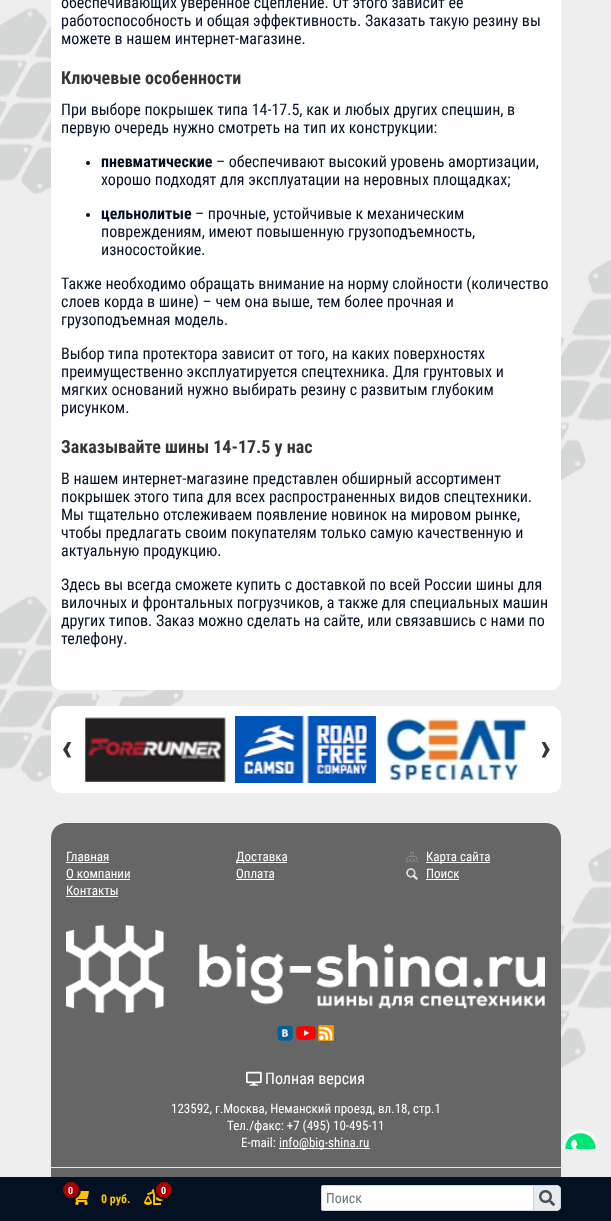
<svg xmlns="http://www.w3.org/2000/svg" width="611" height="1221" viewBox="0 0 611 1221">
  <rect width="100%" height="100%" fill="#eeeeee"/>
  <image x="0" y="8" width="611" height="1060" href="img1.png"/>
  <rect x="51" y="-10" width="510" height="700" rx="10" fill="#ffffff"/>
  <text x="61" y="8" font-family="Roboto Condensed" font-size="16" fill="#051026">обеспечивающих уверенное сцепление. От этого зависит ее</text>
  <text x="61" y="26" font-family="Roboto Condensed" font-size="16" fill="#051026">работоспособность и общая эффективность. Заказать такую резину вы</text>
  <text x="61" y="44" font-family="Roboto Condensed" font-size="16" fill="#051026">можете в нашем интернет-магазине.</text>
  <text x="61" y="84" font-family="Roboto Condensed" font-size="18" font-weight="bold" fill="#363636">Ключевые особенности</text>
  <text x="61" y="115" font-family="Roboto Condensed" font-size="16" fill="#051026">При выборе покрышек типа 14-17.5, как и любых других спецшин, в</text>
  <text x="61" y="133" font-family="Roboto Condensed" font-size="16" fill="#051026">первую очередь нужно смотреть на тип их конструкции:</text>
  <circle cx="88" cy="163" r="2" fill="#051026"/>
  <text x="101" y="167" font-family="Roboto Condensed" font-size="16" font-weight="bold" fill="#051026">пневматические</text>
  <text x="216" y="167" font-family="Roboto Condensed" font-size="16" fill="#051026">– обеспечивают высокий уровень амортизации,</text>
  <text x="101" y="185" font-family="Roboto Condensed" font-size="16" fill="#051026">хорошо подходят для эксплуатации на неровных площадках;</text>
  <circle cx="88" cy="215" r="2" fill="#051026"/>
  <text x="101" y="219" font-family="Roboto Condensed" font-size="16" font-weight="bold" fill="#051026">цельнолитые</text>
  <text x="195" y="219" font-family="Roboto Condensed" font-size="16" fill="#051026">– прочные, устойчивые к механическим</text>
  <text x="101" y="237" font-family="Roboto Condensed" font-size="16" fill="#051026">повреждениям, имеют повышенную грузоподъемность,</text>
  <text x="101" y="255" font-family="Roboto Condensed" font-size="16" fill="#051026">износостойкие.</text>
  <text x="61" y="289" font-family="Roboto Condensed" font-size="16" fill="#051026">Также необходимо обращать внимание на норму слойности (количество</text>
  <text x="61" y="307" font-family="Roboto Condensed" font-size="16" fill="#051026">слоев корда в шине) – чем она выше, тем более прочная и</text>
  <text x="61" y="325" font-family="Roboto Condensed" font-size="16" fill="#051026">грузоподъемная модель.</text>
  <text x="61" y="359" font-family="Roboto Condensed" font-size="16" fill="#051026">Выбор типа протектора зависит от того, на каких поверхностях</text>
  <text x="61" y="377" font-family="Roboto Condensed" font-size="16" fill="#051026">преимущественно эксплуатируется спецтехника. Для грунтовых и</text>
  <text x="61" y="395" font-family="Roboto Condensed" font-size="16" fill="#051026">мягких оснований нужно выбирать резину с развитым глубоким</text>
  <text x="61" y="413" font-family="Roboto Condensed" font-size="16" fill="#051026">рисунком.</text>
  <text x="61" y="453" font-family="Roboto Condensed" font-size="18" font-weight="bold" fill="#363636">Заказывайте шины 14-17.5 у нас</text>
  <text x="61" y="484" font-family="Roboto Condensed" font-size="16" fill="#051026">В нашем интернет-магазине представлен обширный ассортимент</text>
  <text x="61" y="502" font-family="Roboto Condensed" font-size="16" fill="#051026">покрышек этого типа для всех распространенных видов спецтехники.</text>
  <text x="61" y="520" font-family="Roboto Condensed" font-size="16" fill="#051026">Мы тщательно отслеживаем появление новинок на мировом рынке,</text>
  <text x="61" y="538" font-family="Roboto Condensed" font-size="16" fill="#051026">чтобы предлагать своим покупателям только самую качественную и</text>
  <text x="61" y="556" font-family="Roboto Condensed" font-size="16" fill="#051026">актуальную продукцию.</text>
  <text x="61" y="590" font-family="Roboto Condensed" font-size="16" fill="#051026">Здесь вы всегда сможете купить с доставкой по всей России шины для</text>
  <text x="61" y="608" font-family="Roboto Condensed" font-size="16" fill="#051026">вилочных и фронтальных погрузчиков, а также для специальных машин</text>
  <text x="61" y="626" font-family="Roboto Condensed" font-size="16" fill="#051026">других типов. Заказ можно сделать на сайте, или связавшись с нами по</text>
  <text x="61" y="644" font-family="Roboto Condensed" font-size="16" fill="#051026">телефону.</text>
  <rect x="51" y="706" width="510" height="87" rx="10" fill="#ffffff"/>
  <image x="85" y="717" width="141" height="65" href="img2.png"/>
  <image x="235" y="716" width="141" height="67" href="img3.png"/>
  <image x="386" y="717" width="141" height="66" href="img4.png"/>
  <text x="61" y="760" font-family="Roboto Condensed" font-size="40" font-weight="bold" fill="#363636">‹</text>
  <text x="540" y="760" font-family="Roboto Condensed" font-size="40" font-weight="bold" fill="#363636">›</text>
  <path d="M66 823H546C554.5 823 561 829.5 561 838V1057H51V838C51 829.5 57.5 823 66 823Z" fill="#666666"/>
  <text x="66" y="861" font-family="Roboto Condensed" font-size="13" fill="#ffffff">Главная</text>
  <rect x="66" y="862" width="43" height="1" fill="#ffffff"/>
  <text x="66" y="878" font-family="Roboto Condensed" font-size="13" fill="#ffffff">О компании</text>
  <rect x="66" y="879" width="64" height="1" fill="#ffffff"/>
  <text x="66" y="895" font-family="Roboto Condensed" font-size="13" fill="#ffffff">Контакты</text>
  <rect x="66" y="896" width="52" height="1" fill="#ffffff"/>
  <rect x="236" y="862" width="51" height="1" fill="#ffffff"/>
  <text x="236" y="861" font-family="Roboto Condensed" font-size="13" fill="#ffffff">Доставка</text>
  <text x="236" y="878" font-family="Roboto Condensed" font-size="13" fill="#ffffff">Оплата</text>
  <rect x="236" y="879" width="38" height="1" fill="#ffffff"/>
  <image x="406" y="852" width="12" height="10" href="img5.png"/>
  <rect x="426" y="862" width="64" height="1" fill="#ffffff"/>
  <text x="426" y="861" font-family="Roboto Condensed" font-size="13" fill="#ffffff">Карта сайта</text>
  <image x="406" y="868" width="12" height="12" href="img6.png"/>
  <text x="426" y="878" font-family="Roboto Condensed" font-size="13" fill="#ffffff">Поиск</text>
  <rect x="426" y="879" width="33" height="1" fill="#ffffff"/>
  <image x="66" y="925" width="479" height="88" href="img7.png"/>
  <image x="277" y="1025" width="16" height="16" href="img8.png"/>
  <image x="296" y="1026" width="20" height="14" href="img9.png"/>
  <image x="318" y="1025" width="16" height="16" href="img10.png"/>
  <rect x="51" y="1057" width="510" height="120" fill="#666666"/>
  <image x="246" y="1071" width="16" height="15" href="img11.png"/>
  <text x="265" y="1084" font-family="Roboto Condensed" font-size="16" fill="#ffffff">Полная версия</text>
  <text x="171" y="1113" font-family="Roboto Condensed" font-size="13" fill="#ffffff">123592, г.Москва, Неманский проезд, вл.18, стр.1</text>
  <text x="227" y="1130" font-family="Roboto Condensed" font-size="13" fill="#ffffff">Тел./факс: +7 (495) 10-495-11</text>
  <text x="241" y="1147" font-family="Roboto Condensed" font-size="13" fill="#ffffff">E-mail:</text>
  <rect x="279" y="1148" width="91" height="1" fill="#ffffff"/>
  <text x="279" y="1147" font-family="Roboto Condensed" font-size="13" fill="#ffffff">info@big-shina.ru</text>
  <rect x="51" y="1167" width="510" height="1" fill="#e6e6e6"/>
  <image x="562" y="1130" width="37" height="19" href="img12.png"/>
  <rect x="0" y="1177" width="611" height="44" fill="#041123"/>
  <image x="75" y="1191" width="14" height="14" href="img13.png"/>
  <circle cx="71" cy="1190" r="9" fill="#ab0000" stroke="#041123" stroke-width="2"/>
  <text x="68" y="1194" font-family="Roboto Condensed" font-size="10" font-weight="bold" fill="#ffffff">0</text>
  <text x="101" y="1203" font-family="Roboto Condensed" font-size="12" font-weight="bold" fill="#fec001">0 руб.</text>
  <image x="144" y="1189" width="20" height="16" href="img14.png"/>
  <circle cx="164" cy="1190" r="9" fill="#ab0000" stroke="#041123" stroke-width="2"/>
  <text x="161" y="1194" font-family="Roboto Condensed" font-size="10" font-weight="bold" fill="#ffffff">0</text>
  <path d="M533.5 1185.5H557C559 1185.5 560.5 1187 560.5 1189V1207C560.5 1209 559 1210.5 557 1210.5H533.5Z" fill="#e9ecef" stroke="#ced4da"/>
  <path d="M322.5 1185.5H533.5V1210.5H322.5C322 1210.5 321.5 1210 321.5 1209.5V1186.5C321.5 1186 322 1185.5 322.5 1185.5Z" fill="#ffffff" stroke="#ced4da"/>
  <text x="326" y="1203" font-family="Roboto Condensed" font-size="14" fill="#6c757d">Поиск</text>
  <image x="539" y="1190" width="16" height="16" href="img15.png"/>
</svg>
